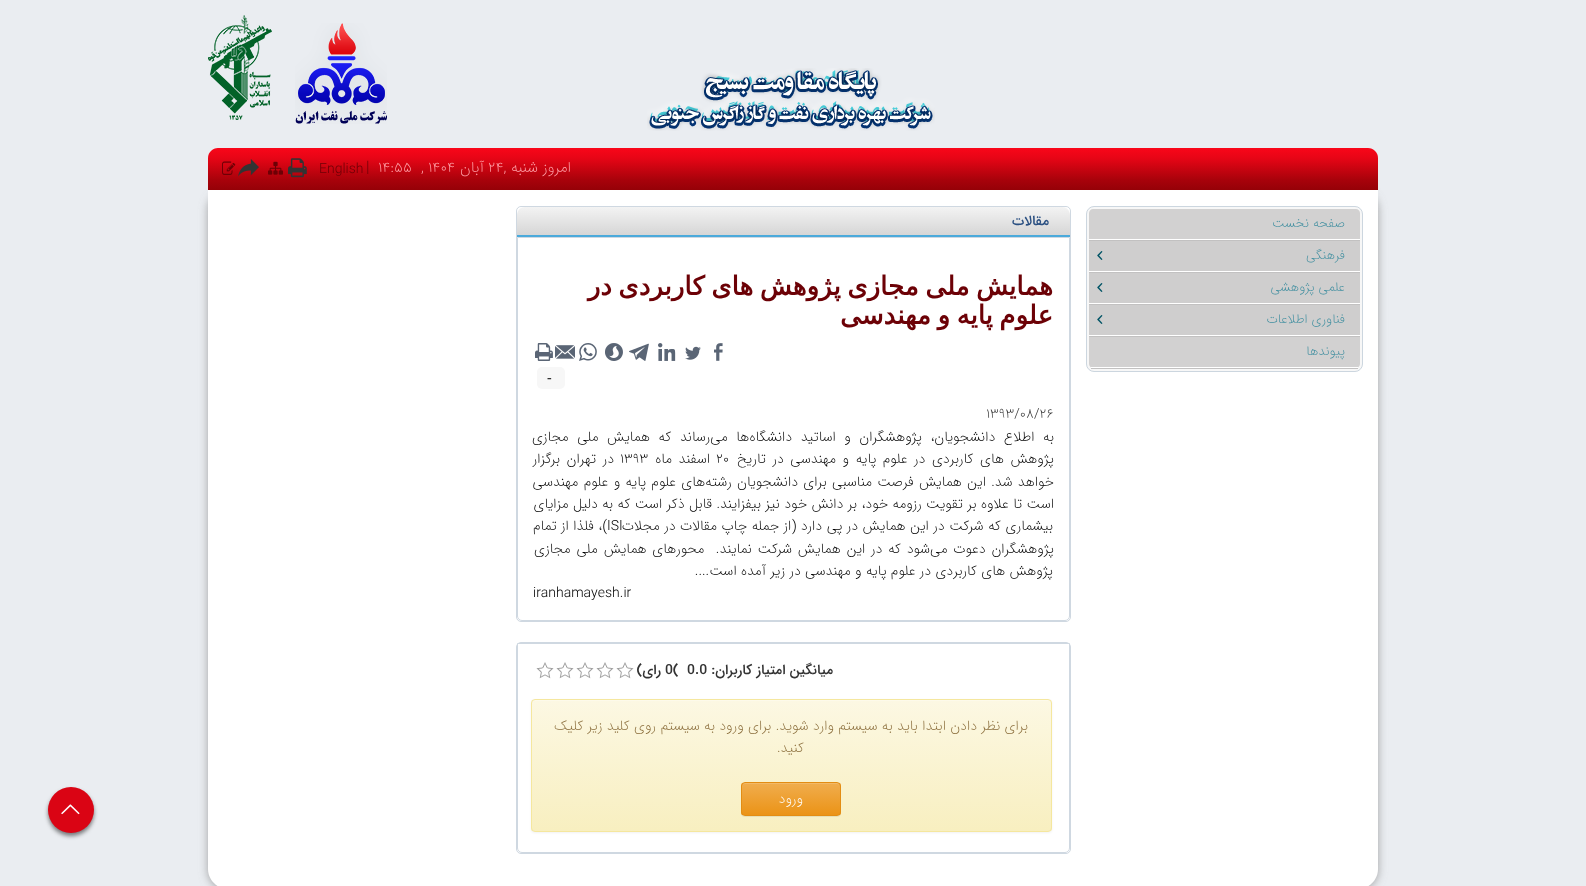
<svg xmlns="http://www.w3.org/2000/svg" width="1586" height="886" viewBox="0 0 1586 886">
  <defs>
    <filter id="blur1" x="-50%" y="-200%" width="200%" height="500%"><feGaussianBlur stdDeviation="5"/></filter>
    <linearGradient id="g1" gradientUnits="userSpaceOnUse" x1="793" y1="148" x2="793" y2="190"><stop offset="0" stop-color="#f90619"/><stop offset="0.24" stop-color="#e70516"/><stop offset="0.76" stop-color="#a8020b"/><stop offset="1" stop-color="#950107"/></linearGradient>
    <linearGradient id="g2" gradientUnits="userSpaceOnUse" x1="794" y1="207" x2="794" y2="235"><stop offset="0" stop-color="#f3f3f3"/><stop offset="1" stop-color="#d6d6d6"/></linearGradient>
    <filter id="blur2" x="-50%" y="-200%" width="200%" height="500%"><feGaussianBlur stdDeviation="1"/></filter>
    <clipPath id="clip1"><rect x="531" y="699" width="521" height="133" rx="4"/></clipPath>
    <linearGradient id="g3" gradientUnits="userSpaceOnUse" x1="792" y1="700" x2="792" y2="831"><stop offset="0" stop-color="#fcf8e3"/><stop offset="1" stop-color="#f8efc0"/></linearGradient>
    <filter id="blur3" x="-50%" y="-200%" width="200%" height="500%"><feGaussianBlur stdDeviation="0.5"/></filter>
    <clipPath id="clip2"><rect x="741" y="782" width="100" height="34" rx="4"/></clipPath>
    <linearGradient id="g4" gradientUnits="userSpaceOnUse" x1="791" y1="783" x2="791" y2="815"><stop offset="0" stop-color="#f0ad4e"/><stop offset="1" stop-color="#eb9316"/></linearGradient>
    <filter id="blur4" x="-50%" y="-200%" width="200%" height="500%"><feGaussianBlur stdDeviation="2"/></filter>
  </defs>
  <rect width="100%" height="100%" fill="#eaedf1"/>
  <image x="647" y="68" width="288" height="63" href="img1.png"/>
  <image x="295" y="23" width="92" height="101" href="img2.png"/>
  <image x="208" y="15" width="64" height="105" href="img3.png"/>
  <rect x="208" y="191" width="1170" height="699" rx="20" fill="#818181" fill-opacity="0.7" filter="url(#blur1)"/>
  <path d="M218 148H1368C1373.5 148 1378 152.5 1378 158V190H208V158C208 152.5 212.5 148 218 148Z" fill="url(#g1)"/>
  <text x="571" y="172" font-family="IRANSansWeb" font-size="15" font-weight="200" direction="rtl" fill="#ffa0a7">امروز</text>
  <text x="538" y="172" font-family="IRANSansWeb" font-size="15" font-weight="200" direction="rtl" fill="#ffa0a7">شنبه ,</text>
  <text x="488" y="172" font-family="IRANSansWeb" font-size="15" font-weight="200" fill="#ffa0a7">۲۴</text>
  <text x="484" y="172" font-family="IRANSansWeb" font-size="15" font-weight="200" direction="rtl" fill="#ffa0a7">آبان</text>
  <text x="428" y="172" font-family="IRANSansWeb" font-size="15" font-weight="200" fill="#ffa0a7">۱۴۰۴</text>
  <text x="421" y="172" font-family="IRANSansWeb" font-size="15" font-weight="200" fill="#ffa0a7">,</text>
  <text x="378" y="172" font-family="IRANSansWeb" font-size="15" font-weight="200" fill="#ffa0a7">۱۴:۵۵</text>
  <text x="366" y="172" font-family="IRANSansWeb" font-size="16" font-weight="200" fill="#6c0106">|</text>
  <text x="319" y="173" font-family="IRANSansWeb" font-size="14" font-weight="200" fill="#6c0106">English</text>
  <image x="288" y="158" width="19" height="20" href="img4.png"/>
  <image x="268" y="161" width="15" height="14" href="img5.png"/>
  <image x="238" y="159" width="21" height="18" href="img6.png"/>
  <image x="222" y="161" width="14" height="14" href="img7.png"/>
  <path d="M208 190H1378V869C1378 880 1369 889 1358 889H228C217 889 208 880 208 869Z" fill="#ffffff"/>
  <rect x="1086.5" y="206.5" width="276" height="165" rx="7.5" fill="#f7f7f7" stroke="#ccd6df"/>
  <rect x="1089" y="240" width="271" height="1" fill="#c2c1c1"/>
  <path d="M1093 209H1356C1358 209 1360 211 1360 213V240H1089V213C1089 211 1091 209 1093 209Z" fill="#d2d1d1"/>
  <rect x="1089" y="239" width="271" height="1" fill="#ffffff"/>
  <text x="1345" y="227" font-family="IRANSansWeb" font-size="13" font-weight="200" direction="rtl" fill="#418fa0">صفحه نخست</text>
  <rect x="1089" y="272" width="271" height="1" fill="#c2c1c1"/>
  <rect x="1089" y="241" width="271" height="30" fill="#cfcece"/>
  <rect x="1089" y="271" width="271" height="1" fill="#ffffff"/>
  <text x="1345" y="259" font-family="IRANSansWeb" font-size="13" font-weight="200" direction="rtl" fill="#418fa0">فرهنگی</text>
  <image x="1097" y="251" width="6" height="9" href="img8.png"/>
  <rect x="1089" y="304" width="271" height="1" fill="#c2c1c1"/>
  <rect x="1089" y="273" width="271" height="30" fill="#cfcece"/>
  <rect x="1089" y="303" width="271" height="1" fill="#ffffff"/>
  <text x="1345" y="291" font-family="IRANSansWeb" font-size="13" font-weight="200" direction="rtl" fill="#418fa0">علمی پژوهشی</text>
  <image x="1097" y="283" width="6" height="9" href="img8.png"/>
  <rect x="1089" y="336" width="271" height="1" fill="#c2c1c1"/>
  <rect x="1089" y="305" width="271" height="30" fill="#cfcece"/>
  <rect x="1089" y="335" width="271" height="1" fill="#ffffff"/>
  <text x="1345" y="323" font-family="IRANSansWeb" font-size="13" font-weight="200" direction="rtl" fill="#418fa0">فناوری اطلاعات</text>
  <image x="1097" y="315" width="6" height="9" href="img8.png"/>
  <rect x="1091" y="368" width="267" height="1" fill="#c2c1c1"/>
  <path d="M1089 337H1360V364C1360 366 1358 368 1356 368H1093C1091 368 1089 366 1089 364Z" fill="#d2d1d1"/>
  <rect x="1091" y="367" width="267" height="1" fill="#ffffff"/>
  <text x="1345" y="355" font-family="IRANSansWeb" font-size="13" font-weight="200" direction="rtl" fill="#418fa0">پیوندها</text>
  <rect x="516.5" y="206.5" width="554" height="415" rx="4.5" fill="none" stroke="#cfd8e1"/>
  <path d="M525 207H1062C1066.5 207 1070 210.5 1070 215V235H517V215C517 210.5 520.5 207 525 207Z" fill="url(#g2)"/>
  <rect x="517" y="235" width="553" height="2" fill="#4baadb"/>
  <text x="1049" y="225" font-family="IRANSansWeb" font-size="14" font-weight="500" direction="rtl" fill="#2b5082">مقالات</text>
  <path d="M517.5 237.5H1069.5V616C1069.5 618.5 1067.5 620.5 1065 620.5H522C519.5 620.5 517.5 618.5 517.5 616Z" fill="#ffffff" stroke="#cfd8e1"/>
  <text x="1053" y="295" word-spacing="-1.75" font-family="DejaVu Sans" font-size="26" font-weight="bold" direction="rtl" fill="#6c0106">همایش ملی مجازی پژوهش های کاربردی در</text>
  <text x="1053" y="324" word-spacing="-1.75" font-family="DejaVu Sans" font-size="26" font-weight="bold" direction="rtl" fill="#6c0106">علوم پایه و مهندسی</text>
  <image x="714" y="343" width="9" height="18" href="img9.png"/>
  <image x="685" y="346" width="16" height="14" href="img10.png"/>
  <image x="658" y="343" width="18" height="18" href="img11.png"/>
  <image x="629" y="343" width="20" height="18" href="img12.png"/>
  <image x="605" y="343" width="18" height="18" href="img13.png"/>
  <image x="579" y="343" width="18" height="18" href="img14.png"/>
  <image x="555" y="345" width="20" height="14" href="img15.png"/>
  <image x="535" y="343" width="18" height="18" href="img16.png"/>
  <rect x="537" y="367" width="28" height="22" rx="5" fill="#f7f7f7"/>
  <text x="547" y="382" font-family="Liberation Serif" font-size="14" fill="#000000">-</text>
  <text x="986" y="418" font-family="IRANSansWeb" font-size="14" font-weight="200" fill="#333333">۱۳۹۳/۰۸/۲۶</text>
  <text x="1054" y="441" word-spacing="4.25" font-family="IRANSansWeb" font-size="14" font-weight="200" direction="rtl" fill="#000000">به اطلاع دانشجویان، پژوهشگران و اساتید دانشگاه‌ها می‌رساند که همایش ملی مجازی</text>
  <text x="1054" y="463" word-spacing="2.25" font-family="IRANSansWeb" font-size="14" font-weight="200" direction="rtl" fill="#000000">پژوهش های کاربردی در علوم پایه و مهندسی در تاریخ</text>
  <text x="716" y="463" font-family="IRANSansWeb" font-size="14" font-weight="200" fill="#000000">۲۰</text>
  <text x="710" y="463" word-spacing="2.25" font-family="IRANSansWeb" font-size="14" font-weight="200" direction="rtl" fill="#000000">اسفند ماه</text>
  <text x="620" y="463" font-family="IRANSansWeb" font-size="14" font-weight="200" fill="#000000">۱۳۹۳</text>
  <text x="614" y="463" word-spacing="2.25" font-family="IRANSansWeb" font-size="14" font-weight="200" direction="rtl" fill="#000000">در تهران برگزار</text>
  <text x="1054" y="486" word-spacing="1" font-family="IRANSansWeb" font-size="14" font-weight="200" direction="rtl" fill="#000000">خواهد شد. این همایش فرصت مناسبی برای دانشجویان رشته‌های علوم پایه و علوم مهندسی</text>
  <text x="1054" y="508" word-spacing="0.1" font-family="IRANSansWeb" font-size="14" font-weight="200" direction="rtl" fill="#000000">است تا علاوه بر تقویت رزومه خود، بر دانش خود نیز بیفزایند. قابل ذکر است که به دلیل مزایای</text>
  <text x="1053" y="530" word-spacing="0.25" font-family="IRANSansWeb" font-size="14" font-weight="200" direction="rtl" fill="#000000">بیشماری که شرکت در این همایش در پی دارد (از جمله چاپ مقالات در مجلات</text>
  <text x="607" y="530" font-family="IRANSansWeb" font-size="14" font-weight="200" fill="#000000">ISI</text>
  <text x="607" y="530" word-spacing="0.25" font-family="IRANSansWeb" font-size="14" font-weight="200" direction="rtl" fill="#000000">)، فلذا از تمام</text>
  <text x="1054" y="553" word-spacing="1.5" font-family="IRANSansWeb" font-size="14" font-weight="200" direction="rtl" fill="#000000" xml:space="preserve">پژوهشگران دعوت می‌شود که در این همایش شرکت نمایند.  محورهای همایش ملی مجازی</text>
  <text x="1053" y="575" font-family="IRANSansWeb" font-size="14" font-weight="200" direction="rtl" fill="#000000">پژوهش های کاربردی در علوم پایه و مهندسی در زیر آمده است....</text>
  <text x="533" y="597" font-family="IRANSansWeb" font-size="14" font-weight="200" fill="#000000">iranhamayesh.ir</text>
  <rect x="516.5" y="642.5" width="554" height="211" rx="4.5" fill="none" stroke="#cfd8e1"/>
  <path d="M517.5 643.5H1069.5V848C1069.5 850.5 1067.5 852.5 1065 852.5H522C519.5 852.5 517.5 850.5 517.5 848Z" fill="#ffffff" stroke="#cfd8e1"/>
  <text x="833" y="674" font-family="IRANSansWeb" font-size="14" font-weight="500" direction="rtl" fill="#333333">میانگین امتیاز کاربران:</text>
  <text x="687" y="674" font-family="IRANSansWeb" font-size="14" font-weight="500" fill="#333333">0.0</text>
  <text x="665" y="674" font-family="IRANSansWeb" font-size="14" font-weight="500" fill="#333333">0(</text>
  <text x="661" y="674" font-family="IRANSansWeb" font-size="14" font-weight="500" direction="rtl" fill="#333333">رای)</text>
  <image x="616" y="662" width="18" height="17" href="img17.png"/>
  <image x="596" y="662" width="18" height="17" href="img17.png"/>
  <image x="576" y="662" width="18" height="17" href="img17.png"/>
  <image x="556" y="662" width="18" height="17" href="img17.png"/>
  <image x="536" y="662" width="18" height="17" href="img17.png"/>
  <rect x="531" y="700" width="521" height="133" rx="4" fill="#000000" fill-opacity="0.05" filter="url(#blur2)"/>
  <g clip-path="url(#clip1)">
    <rect x="531" y="700" width="521" height="131" fill="url(#g3)"/>
  </g>
  <path d="M535 701H1048C1050 701 1051 702 1051 704V702L1049 700H535C533 700 532 702 532 704C532 702 533 701 535 701Z" fill="#fdfaea"/>
  <rect x="531.5" y="699.5" width="520" height="132" rx="3.5" fill="none" stroke="#f5e79e"/>
  <text x="1028" y="730" font-family="IRANSansWeb" font-size="14" font-weight="200" direction="rtl" fill="#8a6d3b">برای نظر دادن ابتدا باید به سیستم وارد شوید. برای ورود به سیستم</text>
  <text x="656" y="730" font-family="IRANSansWeb" font-size="14" font-weight="200" direction="rtl" fill="#8a6d3b">روی کلید زیر کلیک</text>
  <text x="804" y="752" font-family="IRANSansWeb" font-size="14" font-weight="200" direction="rtl" fill="#8a6d3b">کنید.</text>
  <rect x="741" y="783" width="100" height="34" rx="4" fill="#000000" fill-opacity="0.07" filter="url(#blur3)"/>
  <g clip-path="url(#clip2)">
    <rect x="741" y="783" width="100" height="32" fill="url(#g4)"/>
  </g>
  <path d="M745 784H837C839 784 840 785 840 787C840 779 825 783 822 783H760C757 783 742 779 742 787C742 785 743 784 745 784Z" fill="#f2b968"/>
  <rect x="741.5" y="782.5" width="99" height="33" rx="3.5" fill="none" stroke="#e38d13"/>
  <text x="803" y="803" font-family="IRANSansWeb" font-size="14" font-weight="200" direction="rtl" fill="#ffffff">ورود</text>
  <rect x="48" y="790" width="46" height="46" rx="23" fill="#000000" fill-opacity="0.5" filter="url(#blur4)"/>
  <circle cx="71" cy="810" r="23" fill="#da0414"/>
  <image x="61" y="804" width="19" height="11" href="img18.png"/>
</svg>
